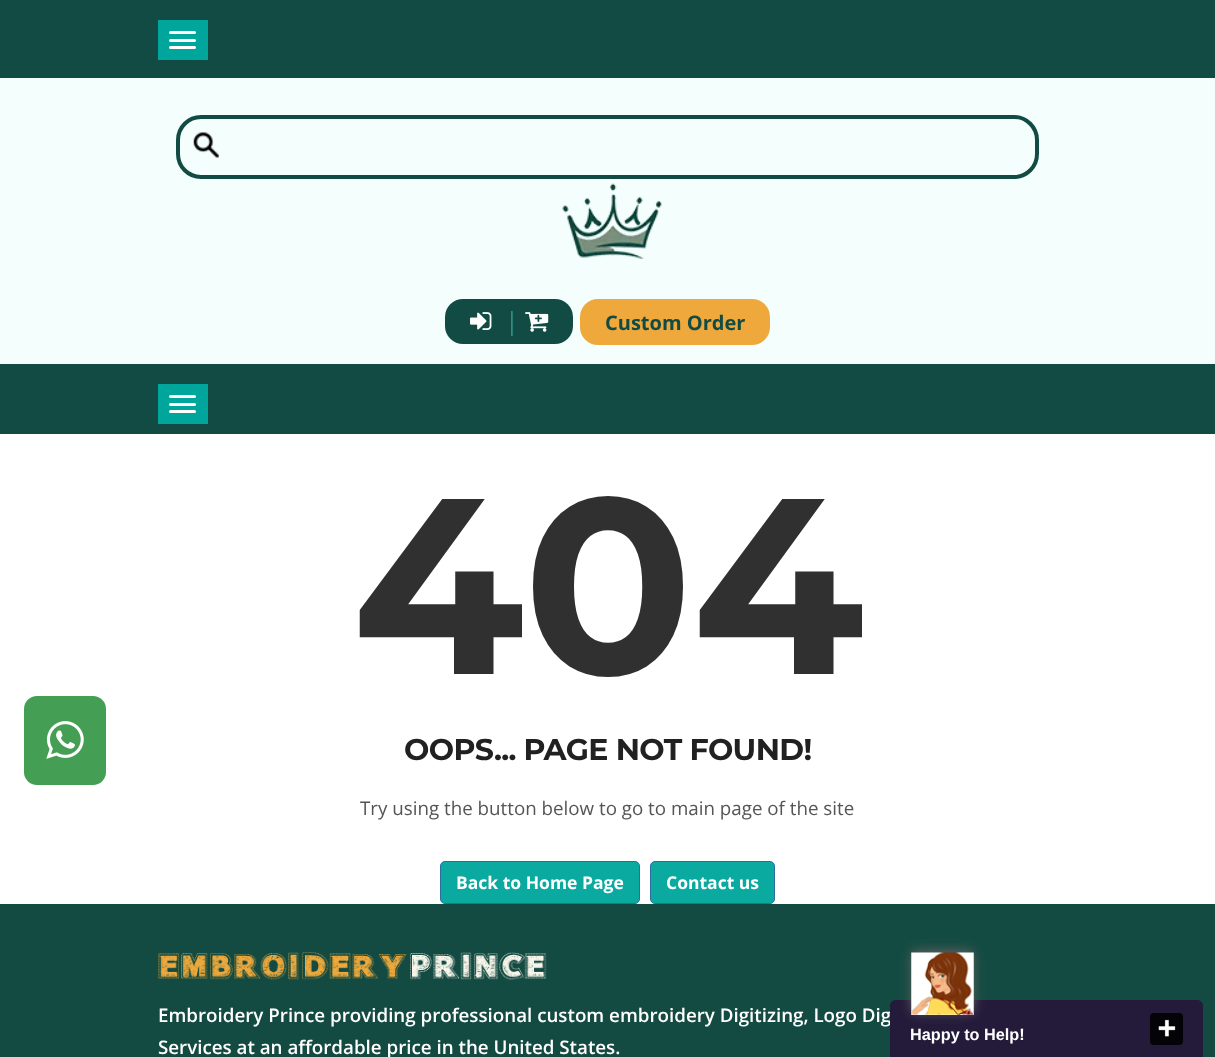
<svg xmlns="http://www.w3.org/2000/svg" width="1215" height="1057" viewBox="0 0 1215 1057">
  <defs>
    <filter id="blur1" x="-50%" y="-200%" width="200%" height="500%"><feGaussianBlur stdDeviation="5.5"/></filter>
  </defs>
  <rect width="100%" height="100%" fill="#ffffff"/>
  <rect x="0" y="0" width="1215" height="78" fill="#124b43"/>
  <rect x="158" y="20" width="50" height="40" fill="#00a69c"/>
  <rect x="169" y="31" width="27" height="3" rx="1.5" fill="#ffffff"/>
  <rect x="169" y="39" width="27" height="3" rx="1.5" fill="#ffffff"/>
  <rect x="169" y="46" width="27" height="3" rx="1.5" fill="#ffffff"/>
  <rect x="0" y="78" width="1215" height="286" fill="#f4fffd"/>
  <image x="193" y="132" width="26" height="26" href="img1.png"/>
  <rect x="178" y="117" width="859" height="60" rx="23" fill="none" stroke="#124b43" stroke-width="4"/>
  <image x="562" y="183" width="100" height="76" href="img2.png"/>
  <rect x="445" y="299" width="128" height="45" rx="18" fill="#124b43"/>
  <image x="470" y="312" width="22" height="18" href="img3.png"/>
  <text x="505" y="330" font-family="Open Sans" font-size="25" fill="#2d8f81">|</text>
  <image x="525" y="312" width="24" height="20" href="img4.png"/>
  <rect x="580" y="299" width="190" height="46" rx="18" fill="#eea83b"/>
  <text x="605" y="330" font-family="Open Sans" font-size="20" font-weight="bold" fill="#124b43">Custom Order</text>
  <rect x="24" y="696" width="82" height="89" rx="13" fill="#449e53"/>
  <image x="46" y="721" width="38" height="38" href="img5.png"/>
  <rect x="0" y="364" width="1215" height="70" fill="#124b43"/>
  <rect x="158" y="384" width="50" height="40" fill="#00a69c"/>
  <rect x="169" y="395" width="27" height="3" rx="1.5" fill="#ffffff"/>
  <rect x="169" y="403" width="27" height="3" rx="1.5" fill="#ffffff"/>
  <rect x="169" y="410" width="27" height="3" rx="1.5" fill="#ffffff"/>
  <text x="352" y="674" font-family="Montserrat" font-size="250" font-weight="bold" letter-spacing="-1" fill="#303030">404</text>
  <text x="404" y="760" font-family="Montserrat" font-size="30" font-weight="bold" letter-spacing="-0.6" fill="#212121">OOPS... PAGE NOT FOUND!</text>
  <text x="360" y="815" font-family="Open Sans" font-size="18.75" fill="#555555">Try using the button below to go to main page of the site</text>
  <rect x="440.5" y="861.5" width="199" height="42" rx="4.5" fill="#0baaa0" stroke="#2e6da4"/>
  <text x="456" y="889" font-family="Open Sans" font-size="17.5" font-weight="bold" fill="#ffffff">Back to Home Page</text>
  <rect x="650.5" y="861.5" width="124" height="42" rx="4.5" fill="#0baaa0" stroke="#2e6da4"/>
  <text x="666" y="889" font-family="Open Sans" font-size="17.5" font-weight="bold" fill="#ffffff">Contact us</text>
  <rect x="0" y="904" width="1215" height="153" fill="#134b42"/>
  <image x="158" y="952" width="389" height="28" href="img6.png"/>
  <text x="158" y="1022" font-family="Open Sans" font-size="18.75" font-weight="600" fill="#ffffff">Embroidery Prince providing professional custom embroidery Digitizing, Logo Dig</text>
  <text x="158" y="1054" font-family="Open Sans" font-size="18.75" font-weight="600" fill="#ffffff">Services at an affordable price in the United States.</text>
  <path d="M896 1000H1197C1200.5 1000 1203 1002.5 1203 1006V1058H890V1006C890 1002.5 892.5 1000 896 1000Z" fill="#241b3b"/>
  <rect x="911" y="950" width="63" height="63" rx="6" fill="#5f5f5e" filter="url(#blur1)"/>
  <image x="911" y="952" width="63" height="63" href="img7.png"/>
  <rect x="1150" y="1013" width="33" height="32" rx="4" fill="#040307"/>
  <image x="1158" y="1019" width="18" height="18" href="img8.png"/>
  <text x="910" y="1040" font-family="Liberation Sans" font-size="16.25" font-weight="bold" fill="#ffffff">Happy to Help!</text>
</svg>
